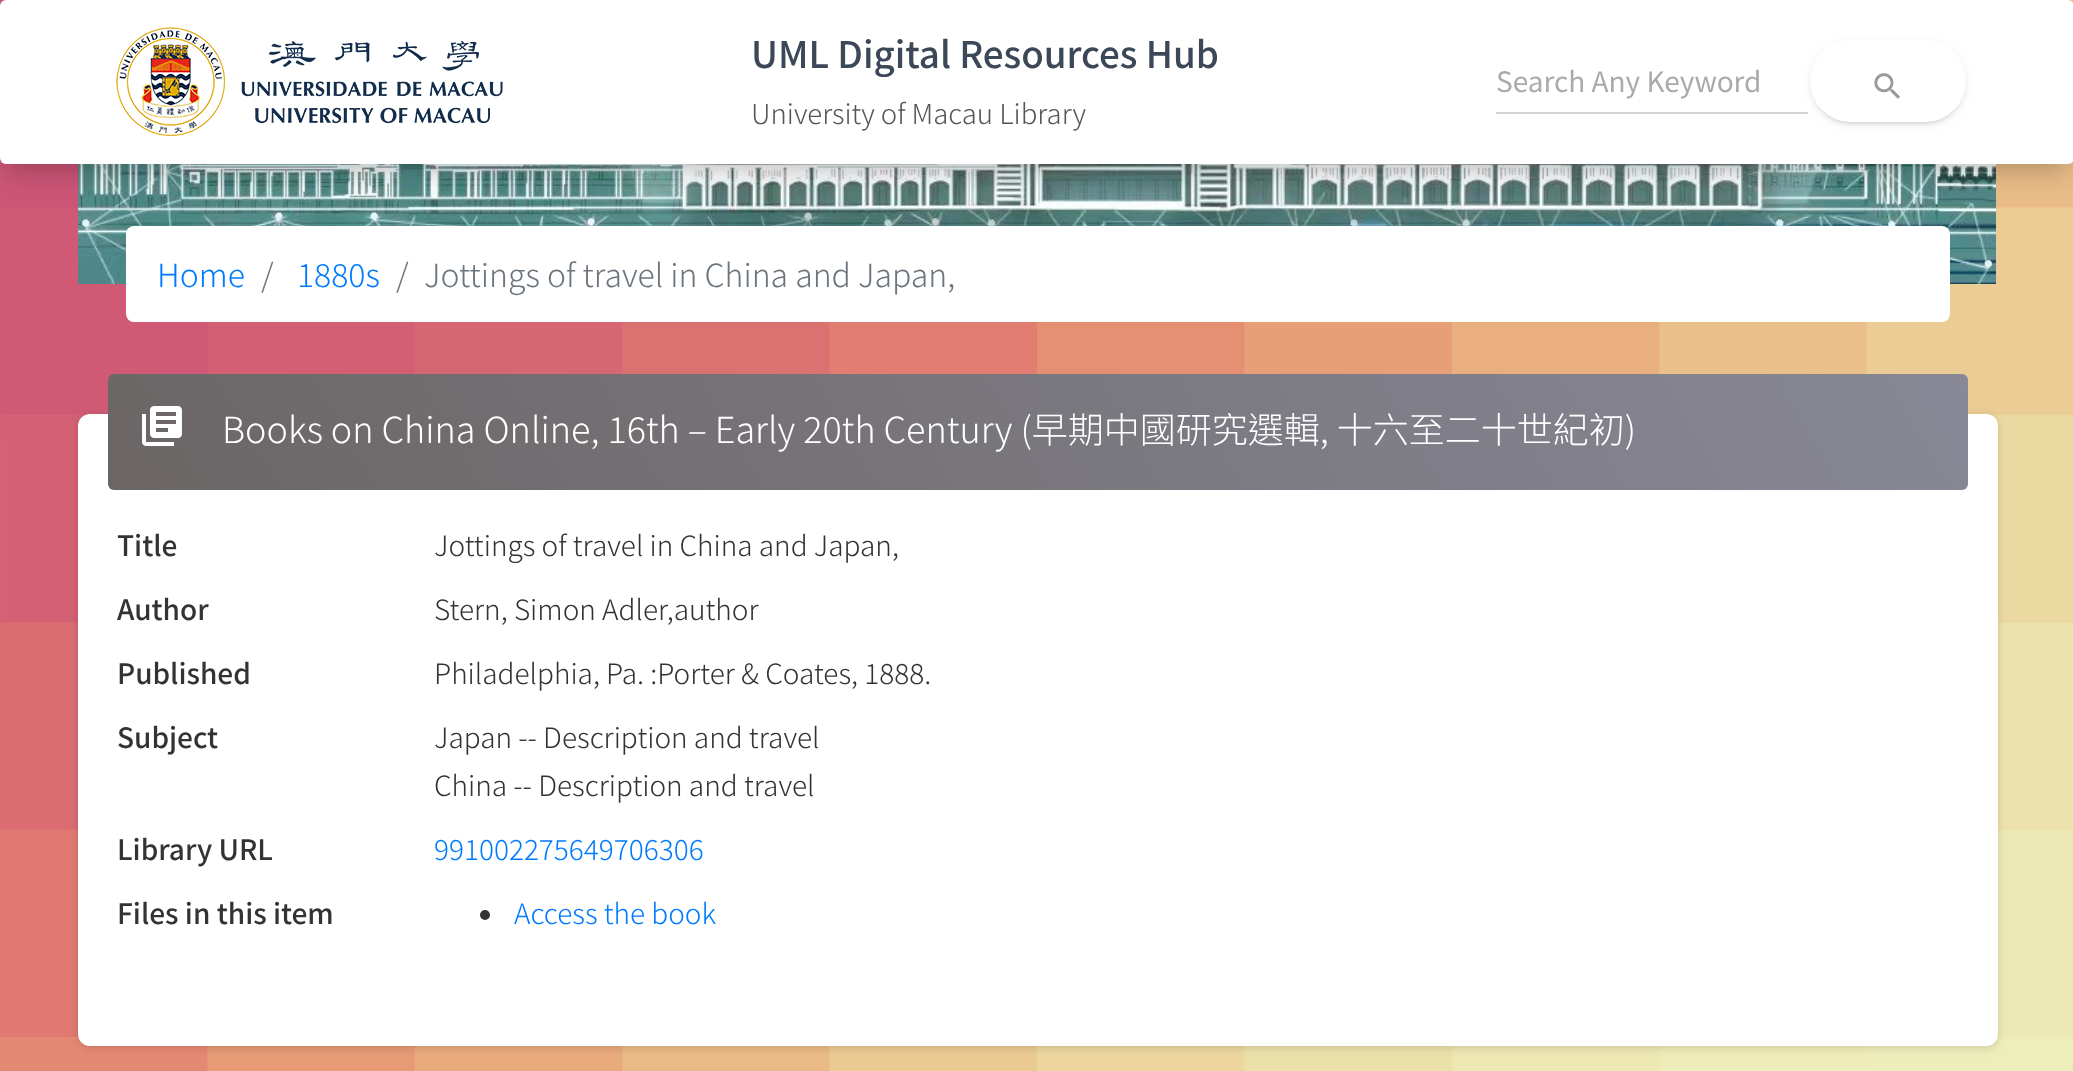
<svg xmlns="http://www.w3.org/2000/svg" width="2073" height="1071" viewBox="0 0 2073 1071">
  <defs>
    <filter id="blur1" x="-50%" y="-200%" width="200%" height="500%"><feGaussianBlur stdDeviation="10"/></filter>
    <filter id="blur2" x="-50%" y="-200%" width="200%" height="500%"><feGaussianBlur stdDeviation="18"/></filter>
    <filter id="blur3" x="-50%" y="-200%" width="200%" height="500%"><feGaussianBlur stdDeviation="5"/></filter>
    <filter id="blur4" x="-50%" y="-200%" width="200%" height="500%"><feGaussianBlur stdDeviation="1"/></filter>
    <filter id="blur5" x="-50%" y="-200%" width="200%" height="500%"><feGaussianBlur stdDeviation="2"/></filter>
    <filter id="blur6" x="-50%" y="-200%" width="200%" height="500%"><feGaussianBlur stdDeviation="4"/></filter>
    <linearGradient id="g1" gradientUnits="userSpaceOnUse" x1="315" y1="849" x2="1761" y2="15"><stop offset="0" stop-color="#6b6565"/><stop offset="1" stop-color="#888896"/></linearGradient>
  </defs>
  <rect width="100%" height="100%" fill="#ffffff"/>
  <image x="0" y="0" width="2073" height="1071" href="img1.png"/>
  <image x="78" y="164" width="1918" height="120" href="img4.png"/>
  <rect x="10" y="24" width="2054" height="144" fill="#000000" fill-opacity="0.15" filter="url(#blur1)"/>
  <rect x="126" y="226" width="1824" height="96" rx="8" fill="#ffffff"/>
  <rect x="0" y="8" width="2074" height="164" rx="6" fill="#000000" fill-opacity="0.12" filter="url(#blur2)"/>
  <rect x="0" y="0" width="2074" height="164" rx="6" fill="#ffffff"/>
  <image x="116" y="26" width="387" height="110" href="img2.png"/>
  <text x="751" y="68" font-family="Noto Sans TC" font-size="36.75" font-weight="500" fill="#3c4858">UML Digital Resources Hub</text>
  <text x="751" y="124" font-family="Noto Sans TC" font-size="27.6" font-weight="300" fill="#555555">University of Macau Library</text>
  <rect x="1496" y="112" width="312" height="2" fill="#d2d2d2"/>
  <text x="1496" y="92" font-family="Noto Sans TC" font-size="28" fill="#aaaaaa">Search Any Keyword</text>
  <rect x="1810" y="42" width="156" height="82" rx="41" fill="#999999" fill-opacity="0.12" filter="url(#blur3)"/>
  <rect x="1814" y="50" width="148" height="74" rx="37" fill="#999999" fill-opacity="0.2" filter="url(#blur4)"/>
  <rect x="1810" y="44" width="156" height="82" rx="41" fill="#999999" fill-opacity="0.14" filter="url(#blur5)"/>
  <rect x="1810" y="40" width="156" height="82" rx="41" fill="#ffffff"/>
  <image x="1874" y="73" width="26" height="26" href="img3.png"/>
  <text x="157" y="287" font-family="Noto Sans TC" font-size="32" font-weight="300" fill="#007bff">Home</text>
  <text x="261" y="287" font-family="Noto Sans TC" font-size="32" font-weight="300" fill="#6c757d">/</text>
  <text x="297" y="287" font-family="Noto Sans TC" font-size="32" font-weight="300" fill="#007bff">1880s</text>
  <text x="396" y="287" font-family="Noto Sans TC" font-size="32" font-weight="300" fill="#6c757d">/</text>
  <text x="424" y="287" font-family="Noto Sans TC" font-size="32" font-weight="300" fill="#6c757d">Jottings of travel in China and Japan,</text>
  <rect x="78" y="416" width="1920" height="632" rx="12" fill="#000000" fill-opacity="0.14" filter="url(#blur6)"/>
  <rect x="78" y="414" width="1920" height="632" rx="12" fill="#ffffff"/>
  <rect x="108" y="374" width="1860" height="116" rx="6" fill="url(#g1)"/>
  <image x="142" y="406" width="40" height="40" href="img5.png"/>
  <text x="222" y="443" font-family="Noto Sans TC" font-size="36" font-weight="300" fill="#ffffff">Books on China Online, 16th – Early 20th Century (早期中國研究選輯, 十六至二十世紀初)</text>
  <text x="117" y="556" font-family="Noto Sans TC" font-size="28" font-weight="500" fill="#333333">Title</text>
  <text x="434" y="556" font-family="Noto Sans TC" font-size="28" font-weight="300" fill="#333333">Jottings of travel in China and Japan,</text>
  <text x="117" y="620" font-family="Noto Sans TC" font-size="28" font-weight="500" fill="#333333">Author</text>
  <text x="434" y="620" font-family="Noto Sans TC" font-size="28" font-weight="300" fill="#333333">Stern, Simon Adler,author</text>
  <text x="117" y="684" font-family="Noto Sans TC" font-size="28" font-weight="500" fill="#333333">Published</text>
  <text x="434" y="684" font-family="Noto Sans TC" font-size="28" font-weight="300" fill="#333333">Philadelphia, Pa. :Porter &amp; Coates, 1888.</text>
  <text x="117" y="748" font-family="Noto Sans TC" font-size="28" font-weight="500" fill="#333333">Subject</text>
  <text x="434" y="748" font-family="Noto Sans TC" font-size="28" font-weight="300" fill="#333333">Japan -- Description and travel</text>
  <text x="434" y="796" font-family="Noto Sans TC" font-size="28" font-weight="300" fill="#333333">China -- Description and travel</text>
  <text x="117" y="860" font-family="Noto Sans TC" font-size="28" font-weight="500" fill="#333333">Library URL</text>
  <text x="434" y="860" font-family="Noto Sans TC" font-size="28" font-weight="300" fill="#007bff">991002275649706306</text>
  <text x="117" y="924" font-family="Noto Sans TC" font-size="28" font-weight="500" fill="#333333">Files in this item</text>
  <circle cx="485" cy="915" r="5" fill="#333333"/>
  <text x="514" y="924" font-family="Noto Sans TC" font-size="28" font-weight="300" fill="#007bff">Access the book</text>
</svg>
